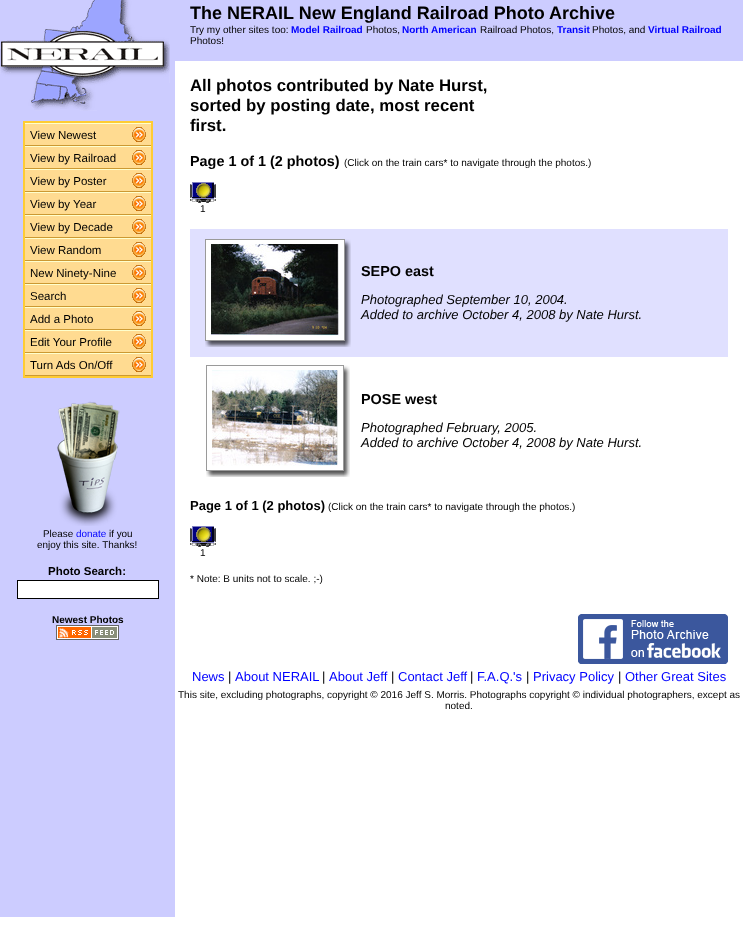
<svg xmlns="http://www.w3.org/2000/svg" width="743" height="929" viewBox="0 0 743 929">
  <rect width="100%" height="100%" fill="#ffffff"/>
  <rect x="0" y="0" width="175" height="917" fill="#ccccff"/>
  <image x="0" y="0" width="170" height="111" href="img1.png"/>
  <rect x="25" y="124" width="126" height="251" fill="#ffdb91"/>
  <rect x="24" y="122" width="128" height="255" fill="none" stroke="#ffcc33" stroke-width="2"/>
  <rect x="25" y="123" width="126" height="1" fill="#ffffcc"/>
  <rect x="25" y="145" width="126" height="1" fill="#cc9933"/>
  <text x="30" y="139" font-family="Liberation Sans" font-size="11.5" fill="#000000">View Newest</text>
  <image x="132" y="127" width="14" height="15" href="img2.png"/>
  <rect x="25" y="146" width="126" height="1" fill="#ffffcc"/>
  <rect x="25" y="168" width="126" height="1" fill="#cc9933"/>
  <text x="30" y="162" font-family="Liberation Sans" font-size="11.5" fill="#000000">View by Railroad</text>
  <image x="132" y="150" width="14" height="15" href="img2.png"/>
  <rect x="25" y="169" width="126" height="1" fill="#ffffcc"/>
  <rect x="25" y="191" width="126" height="1" fill="#cc9933"/>
  <text x="30" y="185" font-family="Liberation Sans" font-size="11.5" fill="#000000">View by Poster</text>
  <image x="132" y="173" width="14" height="15" href="img2.png"/>
  <rect x="25" y="192" width="126" height="1" fill="#ffffcc"/>
  <rect x="25" y="214" width="126" height="1" fill="#cc9933"/>
  <text x="30" y="208" font-family="Liberation Sans" font-size="11.5" fill="#000000">View by Year</text>
  <image x="132" y="196" width="14" height="15" href="img2.png"/>
  <rect x="25" y="215" width="126" height="1" fill="#ffffcc"/>
  <rect x="25" y="237" width="126" height="1" fill="#cc9933"/>
  <text x="30" y="231" font-family="Liberation Sans" font-size="11.5" fill="#000000">View by Decade</text>
  <image x="132" y="219" width="14" height="15" href="img2.png"/>
  <rect x="25" y="238" width="126" height="1" fill="#ffffcc"/>
  <rect x="25" y="260" width="126" height="1" fill="#cc9933"/>
  <text x="30" y="254" font-family="Liberation Sans" font-size="11.5" fill="#000000">View Random</text>
  <image x="132" y="242" width="14" height="15" href="img2.png"/>
  <rect x="25" y="261" width="126" height="1" fill="#ffffcc"/>
  <rect x="25" y="283" width="126" height="1" fill="#cc9933"/>
  <text x="30" y="277" font-family="Liberation Sans" font-size="11.5" fill="#000000">New Ninety-Nine</text>
  <image x="132" y="265" width="14" height="15" href="img2.png"/>
  <rect x="25" y="284" width="126" height="1" fill="#ffffcc"/>
  <rect x="25" y="306" width="126" height="1" fill="#cc9933"/>
  <text x="30" y="300" font-family="Liberation Sans" font-size="11.5" fill="#000000">Search</text>
  <image x="132" y="288" width="14" height="15" href="img2.png"/>
  <rect x="25" y="307" width="126" height="1" fill="#ffffcc"/>
  <rect x="25" y="329" width="126" height="1" fill="#cc9933"/>
  <text x="30" y="323" font-family="Liberation Sans" font-size="11.5" fill="#000000">Add a Photo</text>
  <image x="132" y="311" width="14" height="15" href="img2.png"/>
  <rect x="25" y="330" width="126" height="1" fill="#ffffcc"/>
  <rect x="25" y="352" width="126" height="1" fill="#cc9933"/>
  <text x="30" y="346" font-family="Liberation Sans" font-size="11.5" fill="#000000">Edit Your Profile</text>
  <image x="132" y="334" width="14" height="15" href="img2.png"/>
  <rect x="25" y="353" width="126" height="1" fill="#ffffcc"/>
  <rect x="25" y="375" width="126" height="1" fill="#cc9933"/>
  <text x="30" y="369" font-family="Liberation Sans" font-size="11.5" fill="#000000">Turn Ads On/Off</text>
  <image x="132" y="357" width="14" height="15" href="img2.png"/>
  <image x="57" y="401" width="63" height="125" href="img3.png"/>
  <text x="43" y="537" font-family="Liberation Sans" font-size="9.9" fill="#000000">Please</text>
  <text x="76" y="537" font-family="Liberation Sans" font-size="9.9" fill="#0000ff">donate</text>
  <text x="109" y="537" font-family="Liberation Sans" font-size="9.9" fill="#000000">if you</text>
  <text x="37" y="548" font-family="Liberation Sans" font-size="9.9" fill="#000000">enjoy this site. Thanks!</text>
  <text x="48" y="575" font-family="Liberation Sans" font-size="11.5" font-weight="bold" fill="#000000">Photo Search:</text>
  <rect x="17.5" y="580.5" width="141" height="18" fill="#ffffff" stroke="#000000"/>
  <text x="52" y="623" font-family="Liberation Sans" font-size="10" font-weight="bold" fill="#000000">Newest Photos</text>
  <image x="56" y="625" width="63" height="15" href="img4.png"/>
  <rect x="175" y="0" width="568" height="61" fill="#ccccff"/>
  <text x="190" y="19" font-family="Liberation Sans" font-size="18" font-weight="bold" fill="#000000">The NERAIL New England Railroad Photo Archive</text>
  <text x="190" y="33" font-family="Liberation Sans" font-size="10" fill="#000000">Try my other sites too:</text>
  <text x="291" y="33" font-family="Liberation Sans" font-size="10" font-weight="bold" fill="#0000ff">Model Railroad</text>
  <text x="366" y="33" font-family="Liberation Sans" font-size="10" fill="#000000">Photos,</text>
  <text x="402" y="33" font-family="Liberation Sans" font-size="10" font-weight="bold" fill="#0000ff">North American</text>
  <text x="480" y="33" font-family="Liberation Sans" font-size="10" fill="#000000">Railroad Photos,</text>
  <text x="557" y="33" font-family="Liberation Sans" font-size="10" font-weight="bold" fill="#0000ff">Transit</text>
  <text x="592" y="33" font-family="Liberation Sans" font-size="10" fill="#000000">Photos, and</text>
  <text x="648" y="33" font-family="Liberation Sans" font-size="10" font-weight="bold" fill="#0000ff">Virtual Railroad</text>
  <text x="190" y="44" font-family="Liberation Sans" font-size="10" fill="#000000">Photos!</text>
  <text x="190" y="91" font-family="Liberation Sans" font-size="16.8" font-weight="bold" fill="#000000">All photos contributed by Nate Hurst,</text>
  <text x="190" y="111" font-family="Liberation Sans" font-size="16.8" font-weight="bold" fill="#000000">sorted by posting date, most recent</text>
  <text x="190" y="131" font-family="Liberation Sans" font-size="16.8" font-weight="bold" fill="#000000">first.</text>
  <text x="190" y="166" font-family="Liberation Sans" font-size="14.4" font-weight="bold" fill="#000000">Page 1 of 1 (2 photos)</text>
  <text x="344" y="166" font-family="Liberation Sans" font-size="10" fill="#000000">(Click on the train cars* to navigate through the photos.)</text>
  <image x="190" y="182" width="26" height="21" href="img5.png"/>
  <text x="200" y="212" font-family="Liberation Sans" font-size="10" fill="#000000">1</text>
  <rect x="190" y="229" width="538" height="128" fill="#e0e0ff"/>
  <rect x="205.5" y="239.5" width="139" height="101" fill="#ffffff" stroke="#9a9a9a"/>
  <image x="211" y="244" width="128" height="92" href="img6.png"/>
  <image x="345" y="239" width="6" height="102" href="img7.png"/>
  <image x="205" y="341" width="140" height="6" href="img8.png"/>
  <image x="345" y="341" width="6" height="6" href="img9.png"/>
  <text x="361" y="276" font-family="Liberation Sans" font-size="14.4" font-weight="bold" fill="#000000">SEPO east</text>
  <text x="361" y="304" font-family="Liberation Sans" font-size="13" font-style="italic" fill="#000000">Photographed September 10, 2004.</text>
  <text x="361" y="319" font-family="Liberation Sans" font-size="13" font-style="italic" fill="#000000">Added to archive October 4, 2008 by Nate Hurst.</text>
  <rect x="206.5" y="365.5" width="137" height="105" fill="none" stroke="#9a9a9a"/>
  <image x="212" y="370" width="126" height="96" href="img10.png"/>
  <image x="344" y="365" width="6" height="106" href="img11.png"/>
  <image x="206" y="471" width="138" height="6" href="img12.png"/>
  <image x="344" y="471" width="6" height="6" href="img13.png"/>
  <text x="361" y="404" font-family="Liberation Sans" font-size="14.4" font-weight="bold" fill="#000000">POSE west</text>
  <text x="361" y="432" font-family="Liberation Sans" font-size="13" font-style="italic" fill="#000000">Photographed February, 2005.</text>
  <text x="361" y="447" font-family="Liberation Sans" font-size="13" font-style="italic" fill="#000000">Added to archive October 4, 2008 by Nate Hurst.</text>
  <text x="190" y="510" font-family="Liberation Sans" font-size="13" font-weight="bold" fill="#000000">Page 1 of 1 (2 photos)</text>
  <text x="328" y="510" font-family="Liberation Sans" font-size="10" fill="#000000">(Click on the train cars* to navigate through the photos.)</text>
  <image x="190" y="526" width="26" height="21" href="img5.png"/>
  <text x="200" y="556" font-family="Liberation Sans" font-size="10" fill="#000000">1</text>
  <text x="190" y="582" font-family="Liberation Sans" font-size="10" fill="#000000">* Note: B units not to scale. ;-)</text>
  <image x="578" y="614" width="150" height="50" href="img14.png"/>
  <text x="192" y="681" font-family="Liberation Sans" font-size="13" fill="#0000ff">News</text>
  <text x="228" y="681" font-family="Liberation Sans" font-size="13" fill="#000000">|</text>
  <text x="235" y="681" font-family="Liberation Sans" font-size="13" fill="#0000ff">About NERAIL</text>
  <text x="322" y="681" font-family="Liberation Sans" font-size="13" fill="#000000">|</text>
  <text x="329" y="681" font-family="Liberation Sans" font-size="13" fill="#0000ff">About Jeff</text>
  <text x="391" y="681" font-family="Liberation Sans" font-size="13" fill="#000000">|</text>
  <text x="398" y="681" font-family="Liberation Sans" font-size="13" fill="#0000ff">Contact Jeff</text>
  <text x="470" y="681" font-family="Liberation Sans" font-size="13" fill="#000000">|</text>
  <text x="477" y="681" font-family="Liberation Sans" font-size="13" fill="#0000ff">F.A.Q.'s</text>
  <text x="526" y="681" font-family="Liberation Sans" font-size="13" fill="#000000">|</text>
  <text x="533" y="681" font-family="Liberation Sans" font-size="13" fill="#0000ff">Privacy Policy</text>
  <text x="618" y="681" font-family="Liberation Sans" font-size="13" fill="#000000">|</text>
  <text x="625" y="681" font-family="Liberation Sans" font-size="13" fill="#0000ff">Other Great Sites</text>
  <text x="178" y="698" font-family="Liberation Sans" font-size="10" fill="#000000">This site, excluding photographs, copyright © 2016 Jeff S. Morris. Photographs copyright © individual photographers, except as</text>
  <text x="445" y="709" font-family="Liberation Sans" font-size="10" fill="#000000">noted.</text>
</svg>
